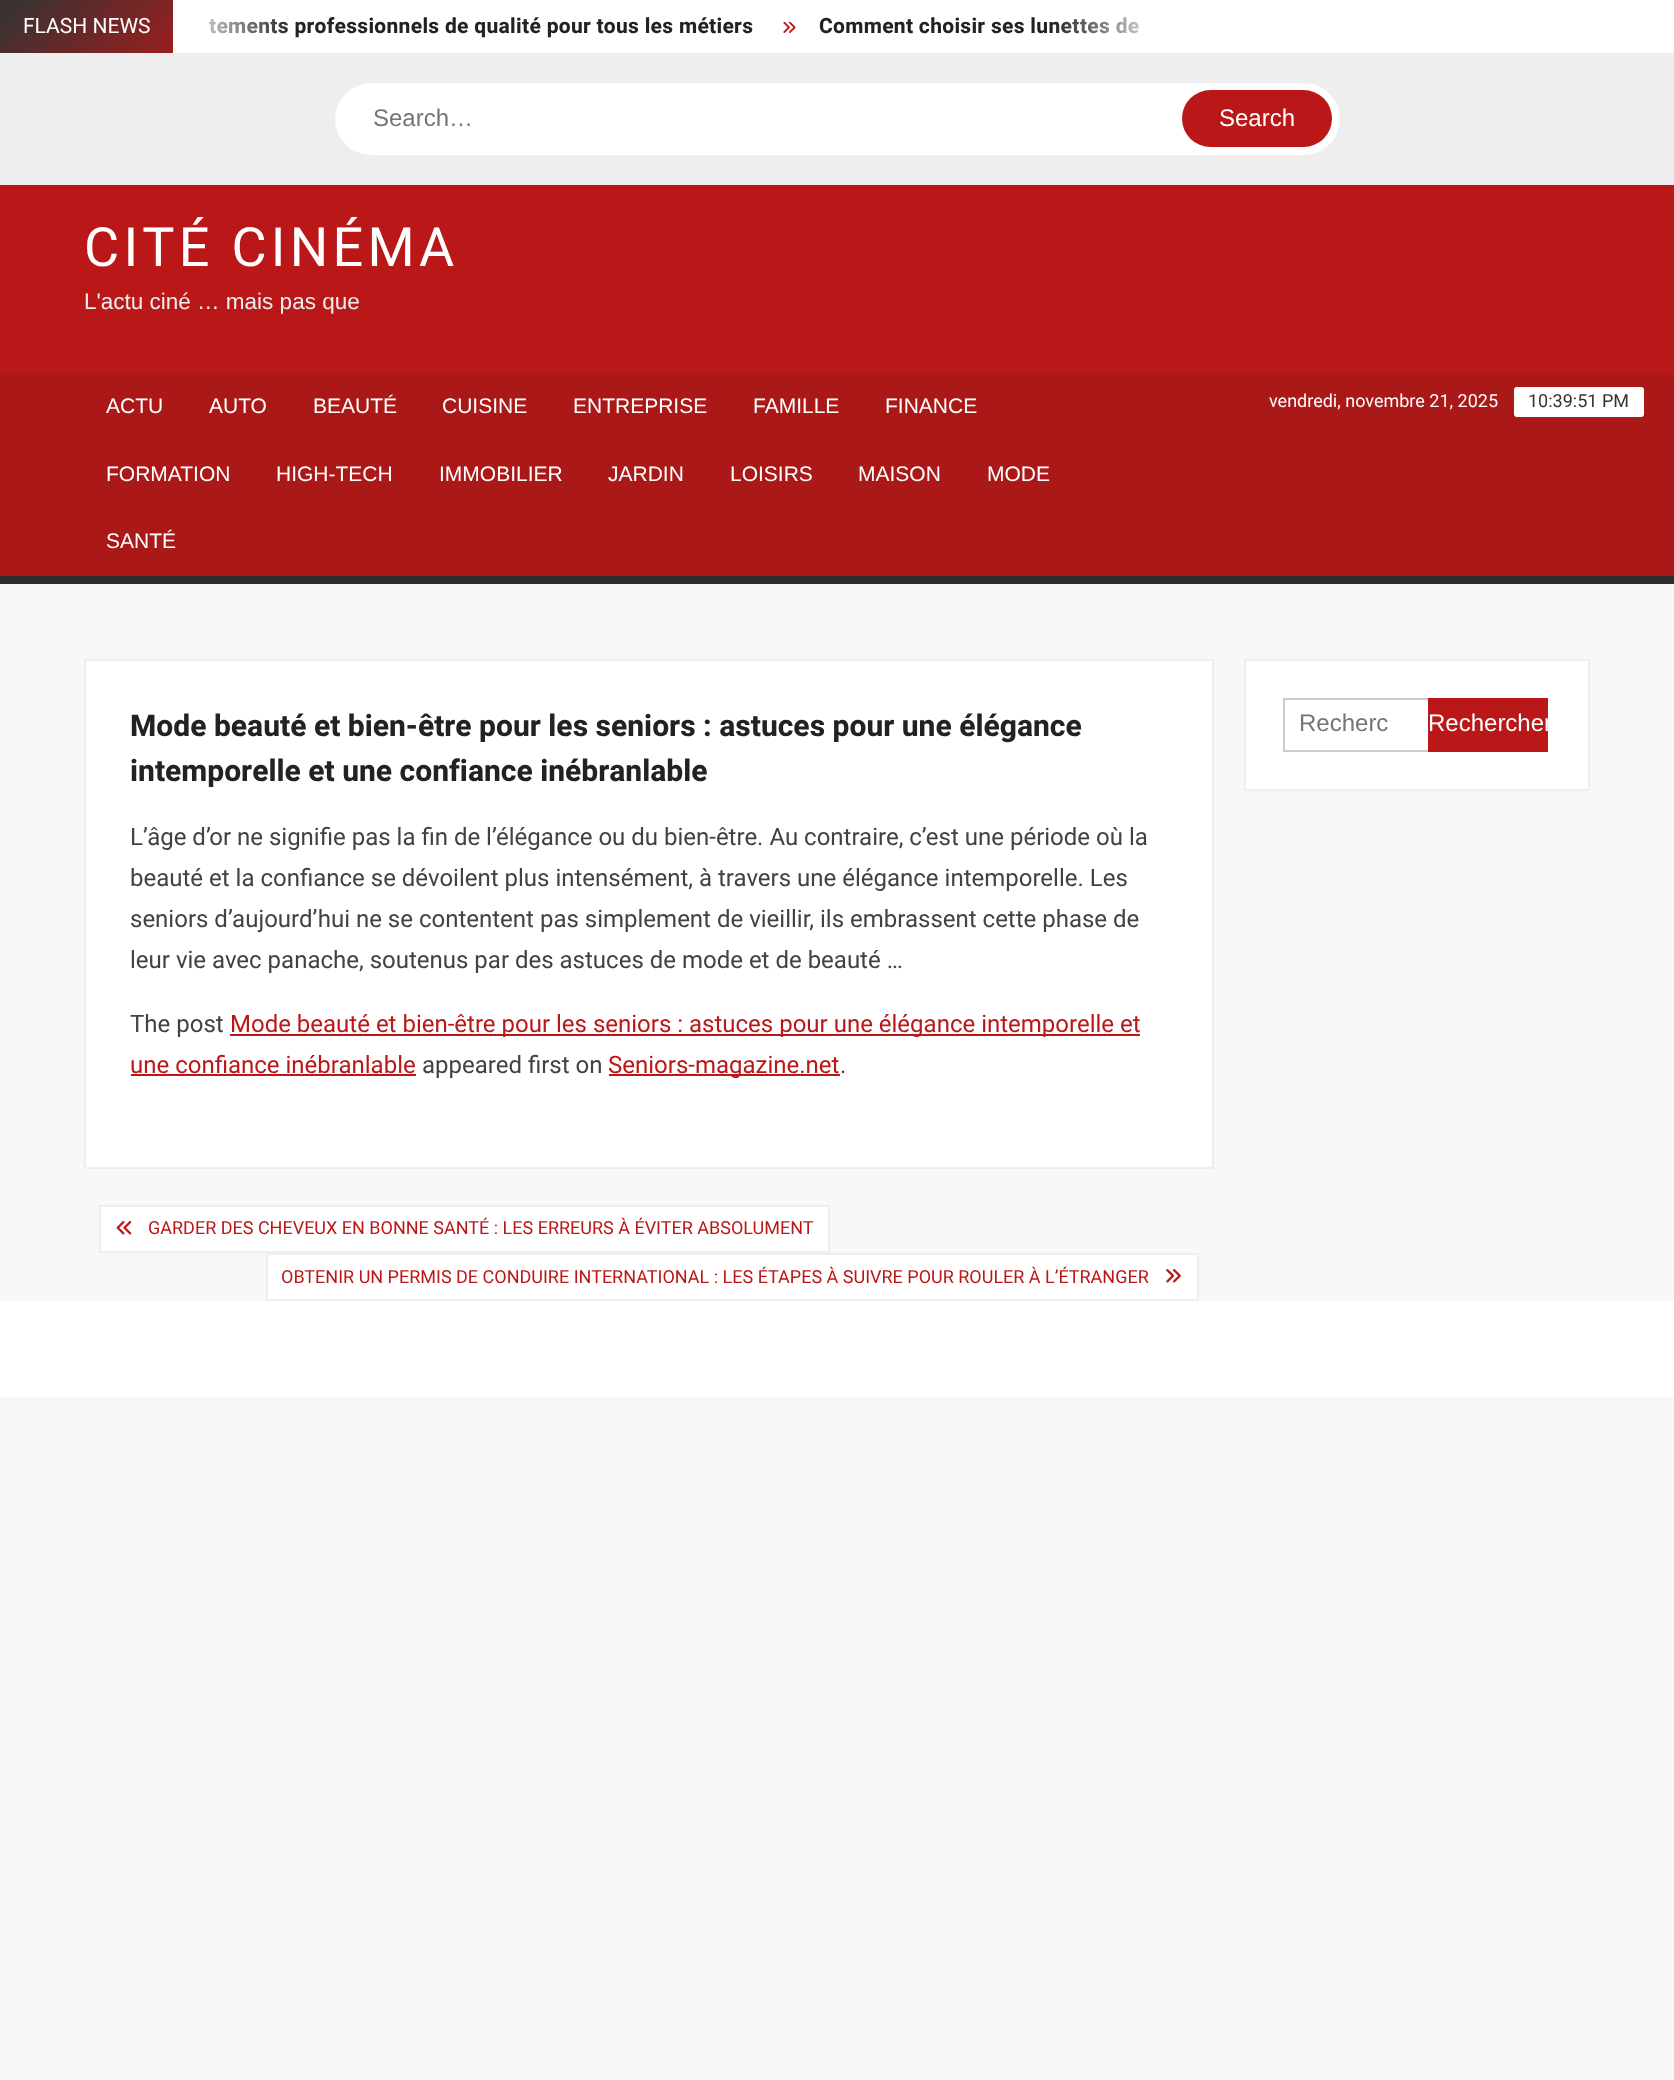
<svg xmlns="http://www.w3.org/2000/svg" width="1674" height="2080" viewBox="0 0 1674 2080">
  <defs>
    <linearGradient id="g1" gradientUnits="userSpaceOnUse" x1="570" y1="330" x2="120" y2="-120"><stop offset="0" stop-color="#ba1818"/><stop offset="0.33" stop-color="#eeeeee"/><stop offset="0.67" stop-color="#ba1818"/><stop offset="1" stop-color="#333333"/></linearGradient>
    <linearGradient id="g2" gradientUnits="userSpaceOnUse" x1="173" y1="26" x2="293" y2="26"><stop offset="0" stop-color="#ffffff"/><stop offset="1" stop-color="#ffffff" stop-opacity="0"/></linearGradient>
    <linearGradient id="g3" gradientUnits="userSpaceOnUse" x1="1052" y1="26" x2="1172" y2="26"><stop offset="0" stop-color="#ffffff" stop-opacity="0"/><stop offset="1" stop-color="#ffffff"/></linearGradient>
    <clipPath id="clip1"><rect x="1428" y="698" width="120" height="54"/></clipPath>
  </defs>
  <rect width="100%" height="100%" fill="#f8f8f8"/>
  <rect x="174" y="0" width="1500" height="53" fill="#ffffff"/>
  <rect x="0" y="0" width="173" height="53" fill="url(#g1)"/>
  <text x="23" y="33" font-family="Heebo" font-size="21" fill="#ffffff">FLASH NEWS</text>
  <text x="209" y="33" font-family="Heebo" font-size="21" font-weight="bold" letter-spacing="0.3" fill="#222222">tements professionnels de qualité pour tous les métiers</text>
  <rect x="173" y="0" width="115" height="53" fill="url(#g2)"/>
  <image x="783" y="21" width="13" height="12" href="img1.png"/>
  <text x="819" y="33" font-family="Heebo" font-size="21" font-weight="bold" letter-spacing="0.3" fill="#222222">Comment choisir ses lunettes de</text>
  <rect x="1055" y="17" width="84" height="17" fill="url(#g3)"/>
  <rect x="0" y="53" width="1674" height="132" fill="#eeeeee"/>
  <rect x="335" y="83" width="1005" height="72" rx="36" fill="#ffffff"/>
  <text x="373" y="126" font-family="Arimo" font-size="24" fill="#757575">Search…</text>
  <rect x="1182" y="90" width="150" height="57" rx="28.5" fill="#ba1818"/>
  <text x="1219" y="126" font-family="Arimo" font-size="24" fill="#ffffff">Search</text>
  <rect x="0" y="185" width="1674" height="189" fill="#ba1818"/>
  <text x="84" y="266" font-family="Heebo" font-size="54" letter-spacing="4.25" fill="#ffffff">CITÉ CINÉMA</text>
  <text x="84" y="309" font-family="Arimo" font-size="22.5" fill="#eeeeee">L'actu ciné … mais pas que</text>
  <rect x="0" y="374" width="1674" height="202" fill="#aa1818"/>
  <rect x="0" y="576" width="1674" height="8" fill="#2c2c2c"/>
  <text x="106" y="413" font-family="Arimo" font-size="21" fill="#ffffff">ACTU</text>
  <text x="209" y="413" font-family="Arimo" font-size="21" fill="#ffffff">AUTO</text>
  <text x="313" y="413" font-family="Arimo" font-size="21" fill="#ffffff">BEAUTÉ</text>
  <text x="442" y="413" font-family="Arimo" font-size="21" fill="#ffffff">CUISINE</text>
  <text x="573" y="413" font-family="Arimo" font-size="21" fill="#ffffff">ENTREPRISE</text>
  <text x="753" y="413" font-family="Arimo" font-size="21" fill="#ffffff">FAMILLE</text>
  <text x="885" y="413" font-family="Arimo" font-size="21" fill="#ffffff">FINANCE</text>
  <text x="106" y="481" font-family="Arimo" font-size="21" fill="#ffffff">FORMATION</text>
  <text x="276" y="481" font-family="Arimo" font-size="21" fill="#ffffff">HIGH-TECH</text>
  <text x="439" y="481" font-family="Arimo" font-size="21" fill="#ffffff">IMMOBILIER</text>
  <text x="608" y="481" font-family="Arimo" font-size="21" fill="#ffffff">JARDIN</text>
  <text x="730" y="481" font-family="Arimo" font-size="21" fill="#ffffff">LOISIRS</text>
  <text x="858" y="481" font-family="Arimo" font-size="21" fill="#ffffff">MAISON</text>
  <text x="987" y="481" font-family="Arimo" font-size="21" fill="#ffffff">MODE</text>
  <text x="106" y="548" font-family="Arimo" font-size="21" fill="#ffffff">SANTÉ</text>
  <text x="1269" y="407" font-family="Roboto" font-size="18" fill="#ffffff">vendredi, novembre 21, 2025</text>
  <rect x="1514" y="387" width="130" height="30" rx="3" fill="#ffffff"/>
  <text x="1528" y="407" font-family="Roboto" font-size="18" fill="#333333">10:39:51 PM</text>
  <rect x="85" y="660" width="1128" height="508" fill="#ffffff" stroke="#eeeeee" stroke-width="2"/>
  <text x="130" y="736" font-family="Heebo" font-size="30" font-weight="bold" fill="#222222">Mode beauté et bien-être pour les seniors : astuces pour une élégance</text>
  <text x="130" y="781" font-family="Heebo" font-size="30" font-weight="bold" fill="#222222">intemporelle et une confiance inébranlable</text>
  <text x="130" y="845" font-family="Roboto" font-size="24" fill="#424242">L’âge d’or ne signifie pas la fin de l’élégance ou du bien-être. Au contraire, c’est une période où la</text>
  <text x="130" y="886" font-family="Roboto" font-size="24" fill="#424242">beauté et la confiance se dévoilent plus intensément, à travers une élégance intemporelle. Les</text>
  <text x="130" y="927" font-family="Roboto" font-size="24" fill="#424242">seniors d’aujourd’hui ne se contentent pas simplement de vieillir, ils embrassent cette phase de</text>
  <text x="130" y="968" font-family="Roboto" font-size="24" fill="#424242">leur vie avec panache, soutenus par des astuces de mode et de beauté …</text>
  <text x="130" y="1032" font-family="Roboto" font-size="24" fill="#424242">The post</text>
  <rect x="230" y="1034" width="910" height="2" fill="#ba1818"/>
  <text x="230" y="1032" font-family="Roboto" font-size="24" fill="#ba1818">Mode beauté et bien-être pour les seniors : astuces pour une élégance intemporelle et</text>
  <text x="130" y="1073" font-family="Roboto" font-size="24" fill="#ba1818">une confiance inébranlable</text>
  <rect x="131" y="1074" width="285" height="2" fill="#ba1818"/>
  <text x="422" y="1073" font-family="Roboto" font-size="24" fill="#424242">appeared first on</text>
  <rect x="609" y="1074" width="231" height="2" fill="#ba1818"/>
  <text x="608" y="1073" font-family="Roboto" font-size="24" fill="#ba1818">Seniors-magazine.net</text>
  <text x="840" y="1073" font-family="Roboto" font-size="24" fill="#424242">.</text>
  <rect x="100" y="1206" width="729" height="46" fill="#ffffff" stroke="#eeeeee" stroke-width="2"/>
  <image x="116" y="1221" width="16" height="14" href="img2.png"/>
  <text x="148" y="1234" font-family="Roboto" font-size="18" fill="#ba1818">GARDER DES CHEVEUX EN BONNE SANTÉ : LES ERREURS À ÉVITER ABSOLUMENT</text>
  <rect x="267" y="1254" width="931" height="46" fill="#ffffff" stroke="#eeeeee" stroke-width="2"/>
  <text x="281" y="1283" font-family="Roboto" font-size="18" fill="#ba1818">OBTENIR UN PERMIS DE CONDUIRE INTERNATIONAL : LES ÉTAPES À SUIVRE POUR ROULER À L’ÉTRANGER</text>
  <image x="1166" y="1269" width="15" height="14" href="img3.png"/>
  <rect x="1245" y="660" width="344" height="130" fill="#ffffff" stroke="#eeeeee" stroke-width="2"/>
  <rect x="1284" y="699" width="145" height="52" fill="none" stroke="#cccccc" stroke-width="2"/>
  <text x="1299" y="731" font-family="Arimo" font-size="24" fill="#757575">Recherc</text>
  <rect x="1428" y="698" width="120" height="54" fill="#ba1818"/>
  <g clip-path="url(#clip1)">
    <text x="1428" y="731" font-family="Arimo" font-size="24" fill="#ffffff">Rechercher</text>
  </g>
  <rect x="0" y="1301" width="1674" height="96" fill="#ffffff"/>
</svg>
